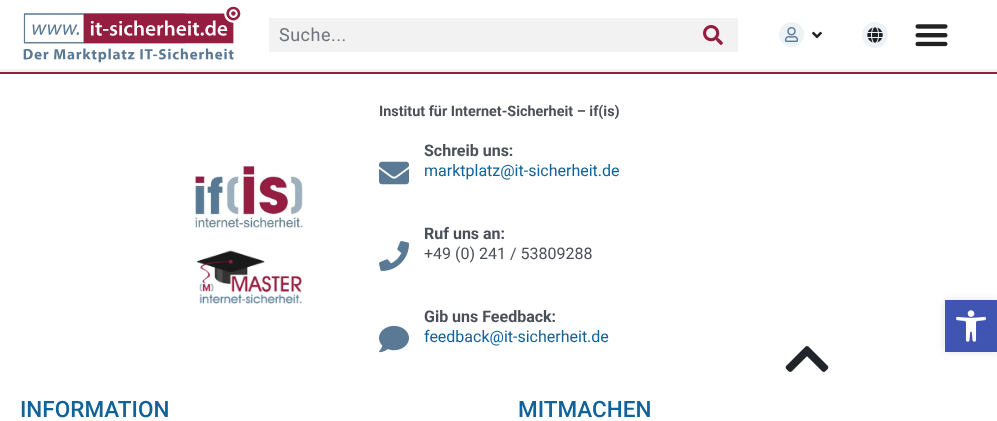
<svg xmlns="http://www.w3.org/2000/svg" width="997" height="421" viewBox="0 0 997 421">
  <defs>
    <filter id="blur1" x="-50%" y="-200%" width="200%" height="500%"><feGaussianBlur stdDeviation="5"/></filter>
  </defs>
  <rect width="100%" height="100%" fill="#ffffff"/>
  <rect x="0" y="69" width="997" height="3" fill="#f2f2f2"/>
  <image x="23" y="6" width="218" height="57" href="img1.png"/>
  <rect x="269" y="18" width="469" height="34" fill="#f2f2f2"/>
  <image x="703" y="25" width="20" height="20" href="img2.png"/>
  <text x="279" y="41" font-family="Roboto" font-size="18" letter-spacing="0.5" fill="#6c757d">Suche...</text>
  <circle cx="791.5" cy="34.5" r="12.5" fill="#edf2f7"/>
  <image x="784" y="27" width="15" height="15" href="img3.png"/>
  <image x="812" y="31" width="10" height="8" href="img4.png"/>
  <circle cx="875" cy="35" r="13" fill="#edf2f7"/>
  <image x="867" y="27" width="16" height="16" href="img5.png"/>
  <image x="915" y="24" width="33" height="23" href="img6.png"/>
  <rect x="0" y="72" width="997" height="2" fill="#951d40"/>
  <image x="195" y="166" width="108" height="62" href="img7.png"/>
  <image x="196" y="250" width="106" height="54" href="img8.png"/>
  <text x="379" y="116" font-family="Roboto" font-size="14.4" font-weight="bold" fill="#4b4f58">Institut für Internet-Sicherheit – if(is)</text>
  <image x="379" y="161" width="30" height="24" href="img9.png"/>
  <text x="424" y="156" font-family="Roboto" font-size="16" font-weight="bold" fill="#4b4f58">Schreib uns:</text>
  <text x="424" y="176" font-family="Roboto" font-size="16" fill="#106299">marktplatz@it-sicherheit.de</text>
  <image x="379" y="241" width="30" height="30" href="img10.png"/>
  <text x="424" y="239" font-family="Roboto" font-size="16" font-weight="bold" fill="#4b4f58">Ruf uns an:</text>
  <text x="424" y="259" font-family="Roboto" font-size="16" fill="#4b4f58">+49 (0) 241 / 53809288</text>
  <image x="379" y="325" width="30" height="28" href="img11.png"/>
  <text x="424" y="322" font-family="Roboto" font-size="16" font-weight="bold" fill="#4b4f58">Gib uns Feedback:</text>
  <text x="424" y="342" font-family="Roboto" font-size="16" fill="#106299">feedback@it-sicherheit.de</text>
  <image x="785" y="346" width="44" height="26" href="img12.png"/>
  <text x="20" y="417" font-family="Roboto" font-size="22.5" font-weight="500" fill="#106299">INFORMATION</text>
  <text x="518" y="417" font-family="Roboto" font-size="22.5" font-weight="500" fill="#106299">MITMACHEN</text>
  <rect x="945" y="300" width="52" height="52" fill="#000000" fill-opacity="0.1" filter="url(#blur1)"/>
  <rect x="945" y="300" width="52" height="52" fill="#4054b2"/>
  <image x="956" y="310" width="30" height="32" href="img13.png"/>
</svg>
